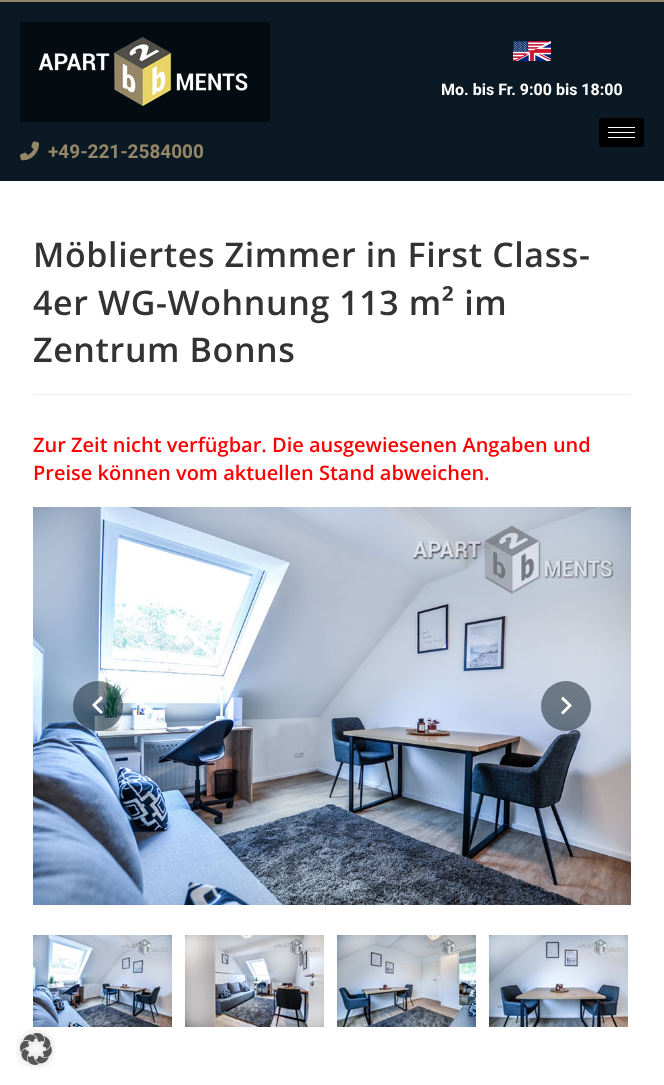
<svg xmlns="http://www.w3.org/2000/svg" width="664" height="1085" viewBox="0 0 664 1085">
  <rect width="100%" height="100%" fill="#ffffff"/>
  <rect x="0" y="2" width="664" height="179" fill="#0a1923"/>
  <rect x="0" y="0" width="664" height="2" fill="#958767"/>
  <image x="513" y="41" width="38" height="20" href="img1.png"/>
  <text x="441" y="95" font-family="Roboto" font-size="16" font-weight="bold" fill="#ffffff">Mo. bis Fr. 9:00 bis 18:00</text>
  <rect x="599" y="118" width="45" height="29" rx="3" fill="#000000"/>
  <rect x="608" y="127" width="27" height="1" fill="#ffffff"/>
  <rect x="608" y="132" width="27" height="1" fill="#ffffff"/>
  <rect x="608" y="137" width="27" height="1" fill="#ffffff"/>
  <image x="20" y="22" width="250" height="100" href="img2.png"/>
  <image x="20" y="141" width="19" height="20" href="img3.png"/>
  <text x="48" y="158" font-family="Roboto" font-size="19" font-weight="bold" fill="#958767">+49-221-2584000</text>
  <rect x="33" y="394" width="598" height="1" fill="#f1f1f1"/>
  <text x="33" y="267" font-family="Open Sans" font-size="34" font-weight="600" letter-spacing="0.6" fill="#333333">Möbliertes Zimmer in First Class-</text>
  <text x="33" y="315" font-family="Open Sans" font-size="34" font-weight="600" letter-spacing="0.6" fill="#333333">4er WG-Wohnung 113 m² im</text>
  <text x="33" y="362" font-family="Open Sans" font-size="34" font-weight="600" letter-spacing="0.6" fill="#333333">Zentrum Bonns</text>
  <text x="33" y="452" font-family="Open Sans" font-size="20" font-weight="600" fill="#ff0000">Zur Zeit nicht verfügbar. Die ausgewiesenen Angaben und</text>
  <text x="33" y="480" font-family="Open Sans" font-size="20" font-weight="600" fill="#ff0000">Preise können vom aktuellen Stand abweichen.</text>
  <image x="33" y="507" width="598" height="398" href="img4.png"/>
  <circle cx="98" cy="706" r="25" fill="#0a1923" fill-opacity="0.5"/>
  <path d="M103 712L101 714L92 705L101 696L103 698.5L96 705Z" fill="#ffffff"/>
  <circle cx="566" cy="706" r="25" fill="#0a1923" fill-opacity="0.5"/>
  <path d="M561 712.5L568 705.5L561 699L563 696.5L572 705.5L563 714.5Z" fill="#ffffff"/>
  <image x="33" y="935" width="139" height="92" href="img5.png"/>
  <image x="185" y="935" width="139" height="92" href="img6.png"/>
  <image x="337" y="935" width="139" height="92" href="img7.png"/>
  <image x="489" y="935" width="139" height="92" href="img8.png"/>
  <image x="16" y="1029" width="40" height="40" href="img9.png"/>
</svg>
